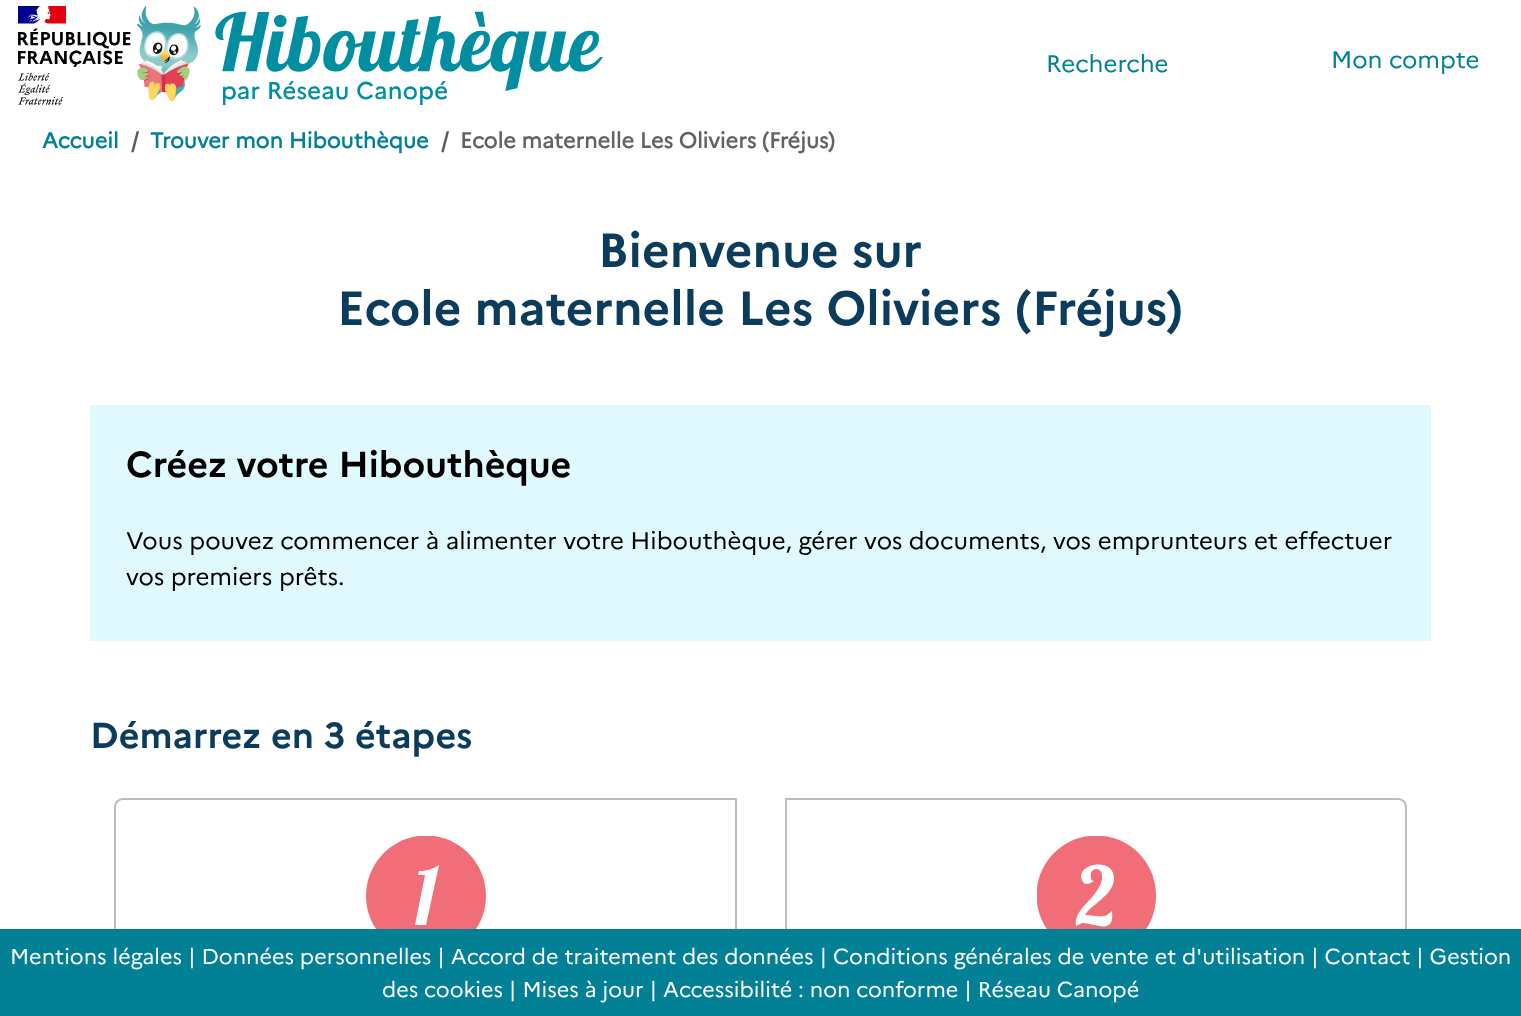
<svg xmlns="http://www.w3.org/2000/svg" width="1521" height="1016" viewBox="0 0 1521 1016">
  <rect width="100%" height="100%" fill="#ffffff"/>
  <image x="18" y="6" width="113" height="99" href="img1.png"/>
  <image x="137" y="6" width="466" height="99" href="img2.png"/>
  <text x="1046" y="72" font-family="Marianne" font-size="24" fill="#028096">Recherche</text>
  <text x="1331" y="68" font-family="Marianne" font-size="24" fill="#028096">Mon compte</text>
  <text x="42" y="148" font-family="Marianne" font-size="21.6" font-weight="bold" fill="#028096">Accueil</text>
  <text x="131" y="148" font-family="Marianne" font-size="21.6" font-weight="bold" fill="#595c5f">/</text>
  <text x="150" y="148" font-family="Marianne" font-size="21.6" font-weight="bold" fill="#028096">Trouver mon Hibouthèque</text>
  <text x="441" y="148" font-family="Marianne" font-size="21.6" font-weight="bold" fill="#595c5f">/</text>
  <text x="460" y="148" font-family="Marianne" font-size="21.6" font-weight="bold" fill="#5e6363">Ecole maternelle Les Oliviers (Fréjus)</text>
  <text x="598" y="267" font-family="'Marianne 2'" font-size="48" font-weight="bold" fill="#0b3c5c">Bienvenue sur</text>
  <text x="337" y="325" font-family="'Marianne 2'" font-size="48" font-weight="bold" fill="#0b3c5c">Ecole maternelle Les Oliviers (Fréjus)</text>
  <rect x="90" y="405" width="1341" height="236" fill="#e0f9ff"/>
  <text x="126" y="477" font-family="'Marianne 2'" font-size="36" font-weight="bold" fill="#000000">Créez votre Hibouthèque</text>
  <text x="126" y="549" font-family="Marianne" font-size="24" fill="#000000">Vous pouvez commencer à alimenter votre Hibouthèque, gérer vos documents, vos emprunteurs et effectuer</text>
  <text x="126" y="585" font-family="Marianne" font-size="24" fill="#000000">vos premiers prêts.</text>
  <text x="90" y="748" font-family="'Marianne 2'" font-size="36" font-weight="bold" fill="#0b3c5c">Démarrez en 3 étapes</text>
  <path d="M123 799H736V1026H123C118.5 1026 115 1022.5 115 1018V807C115 802.5 118.5 799 123 799Z" fill="none" stroke="#bcbcbc" stroke-width="2"/>
  <path d="M434 836C463 840 486 865 486 896C486 929 459 956 426 956C393 956 366 929 366 896C366 865 389 840 418 836Z" fill="#f16e78"/>
  <path d="M419 871C426 871 433 869 439 865L426 925H415L425 875H418Z" fill="#ffffff"/>
  <path d="M786 799H1398C1402.5 799 1406 802.5 1406 807V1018C1406 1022.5 1402.5 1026 1398 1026H786Z" fill="none" stroke="#bcbcbc" stroke-width="2"/>
  <path d="M1037 888C1040 861 1062 839 1089 836H1104C1134 840 1156 865 1156 896C1156 929 1130 956 1096 956C1066 956 1041 933 1037 903Z" fill="#f16e78"/>
  <path d="M1096 904C1092 907 1088 910 1085 915C1092 915 1100 918 1107 915L1112 911C1115 936 1095 923 1082 923L1076 926C1073 908 1099 898 1102 879C1104 865 1088 867 1091 878C1091 879 1092 881 1094 881C1090 884 1084 886 1082 880C1075 863 1116 856 1114 880C1113 890 1104 897 1096 904Z" fill="#ffffff"/>
  <rect x="0" y="929" width="1521" height="87" fill="#028096"/>
  <text x="10" y="964" font-family="Marianne" font-size="21.6" fill="#ffffff">Mentions légales | Données personnelles | Accord de traitement des données | Conditions générales de vente et d'utilisation | Contact | Gestion</text>
  <text x="382" y="997" font-family="Marianne" font-size="21.6" fill="#ffffff">des cookies | Mises à jour | Accessibilité : non conforme | Réseau Canopé</text>
</svg>
